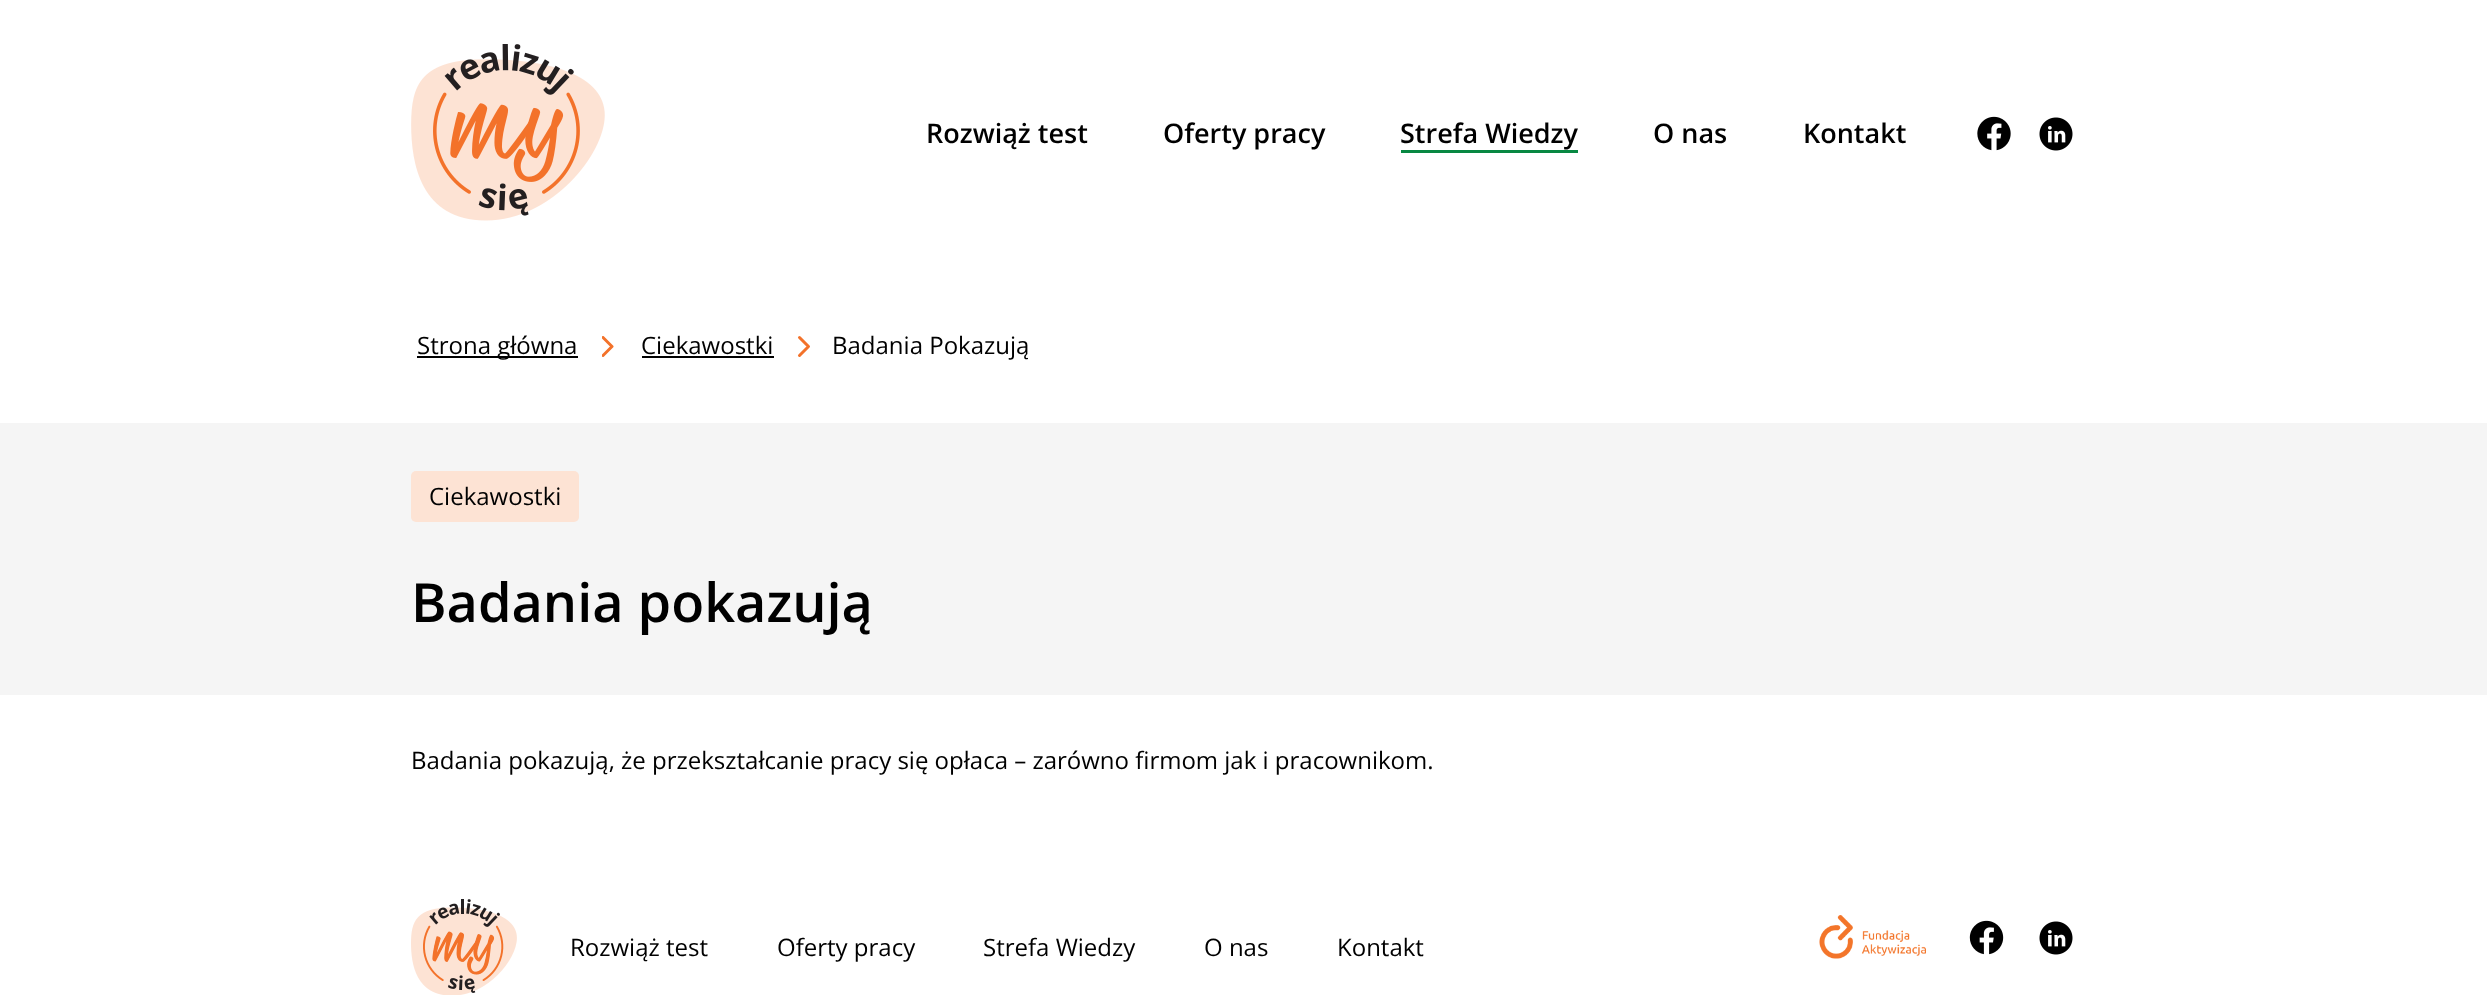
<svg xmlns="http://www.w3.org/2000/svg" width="2487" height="1007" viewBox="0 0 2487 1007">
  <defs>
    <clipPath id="clip1"><rect x="602" y="336" width="12" height="21"/></clipPath>
  </defs>
  <rect width="100%" height="100%" fill="#ffffff"/>
  <image x="411" y="44" width="194" height="177" href="img1.png"/>
  <text x="926" y="143" font-family="Open Sans" font-size="27" font-weight="600" fill="#000000">Rozwiąż test</text>
  <text x="1163" y="143" font-family="Open Sans" font-size="27" font-weight="600" fill="#000000">Oferty pracy</text>
  <text x="1400" y="143" font-family="Open Sans" font-size="27" font-weight="600" fill="#000000">Strefa Wiedzy</text>
  <rect x="1401" y="150" width="177" height="3" fill="#088842"/>
  <text x="1653" y="143" font-family="Open Sans" font-size="27" font-weight="600" fill="#000000">O nas</text>
  <text x="1803" y="143" font-family="Open Sans" font-size="27" font-weight="600" fill="#000000">Kontakt</text>
  <image x="1977" y="116" width="34" height="35" href="img2.png"/>
  <image x="2039" y="117" width="34" height="34" href="img3.png"/>
  <rect x="417" y="356" width="161" height="2" fill="#000000"/>
  <text x="417" y="354" font-family="Open Sans" font-size="24" fill="#000000">Strona główna</text>
  <g clip-path="url(#clip1)">
    <path d="M603 355.5L612 346.5L603 337.5" fill="none" stroke="#f3722a" stroke-width="3" stroke-linecap="round" stroke-linejoin="round"/>
  </g>
  <text x="641" y="354" font-family="Open Sans" font-size="24" fill="#000000">Ciekawostki</text>
  <rect x="642" y="356" width="132" height="2" fill="#000000"/>
  <text x="832" y="354" font-family="Open Sans" font-size="24" fill="#000000">Badania Pokazują</text>
  <path d="M799.5 355.5L808.5 346.5L799.5 337.5" fill="none" stroke="#f3722a" stroke-width="3" stroke-linecap="round" stroke-linejoin="round"/>
  <rect x="0" y="423" width="2487" height="272" fill="#f5f5f5"/>
  <rect x="411" y="471" width="168" height="51" rx="5" fill="#fde3d4"/>
  <text x="429" y="505" font-family="Open Sans" font-size="24" fill="#000000">Ciekawostki</text>
  <text x="411" y="622" font-family="Open Sans" font-size="54" font-weight="600" fill="#000000">Badania pokazują</text>
  <text x="411" y="769" font-family="Open Sans" font-size="24" fill="#000000">Badania pokazują, że przekształcanie pracy się opłaca – zarówno firmom jak i pracownikom.</text>
  <image x="411" y="899" width="106" height="96" href="img4.png"/>
  <text x="570" y="956" font-family="Open Sans" font-size="24" fill="#000000">Rozwiąż test</text>
  <text x="777" y="956" font-family="Open Sans" font-size="24" fill="#000000">Oferty pracy</text>
  <text x="983" y="956" font-family="Open Sans" font-size="24" fill="#000000">Strefa Wiedzy</text>
  <text x="1204" y="956" font-family="Open Sans" font-size="24" fill="#000000">O nas</text>
  <text x="1337" y="956" font-family="Open Sans" font-size="24" fill="#000000">Kontakt</text>
  <image x="1819" y="915" width="107" height="44" href="img5.png"/>
  <image x="1969" y="920" width="35" height="35" href="img6.png"/>
  <image x="2039" y="921" width="34" height="34" href="img3.png"/>
</svg>
